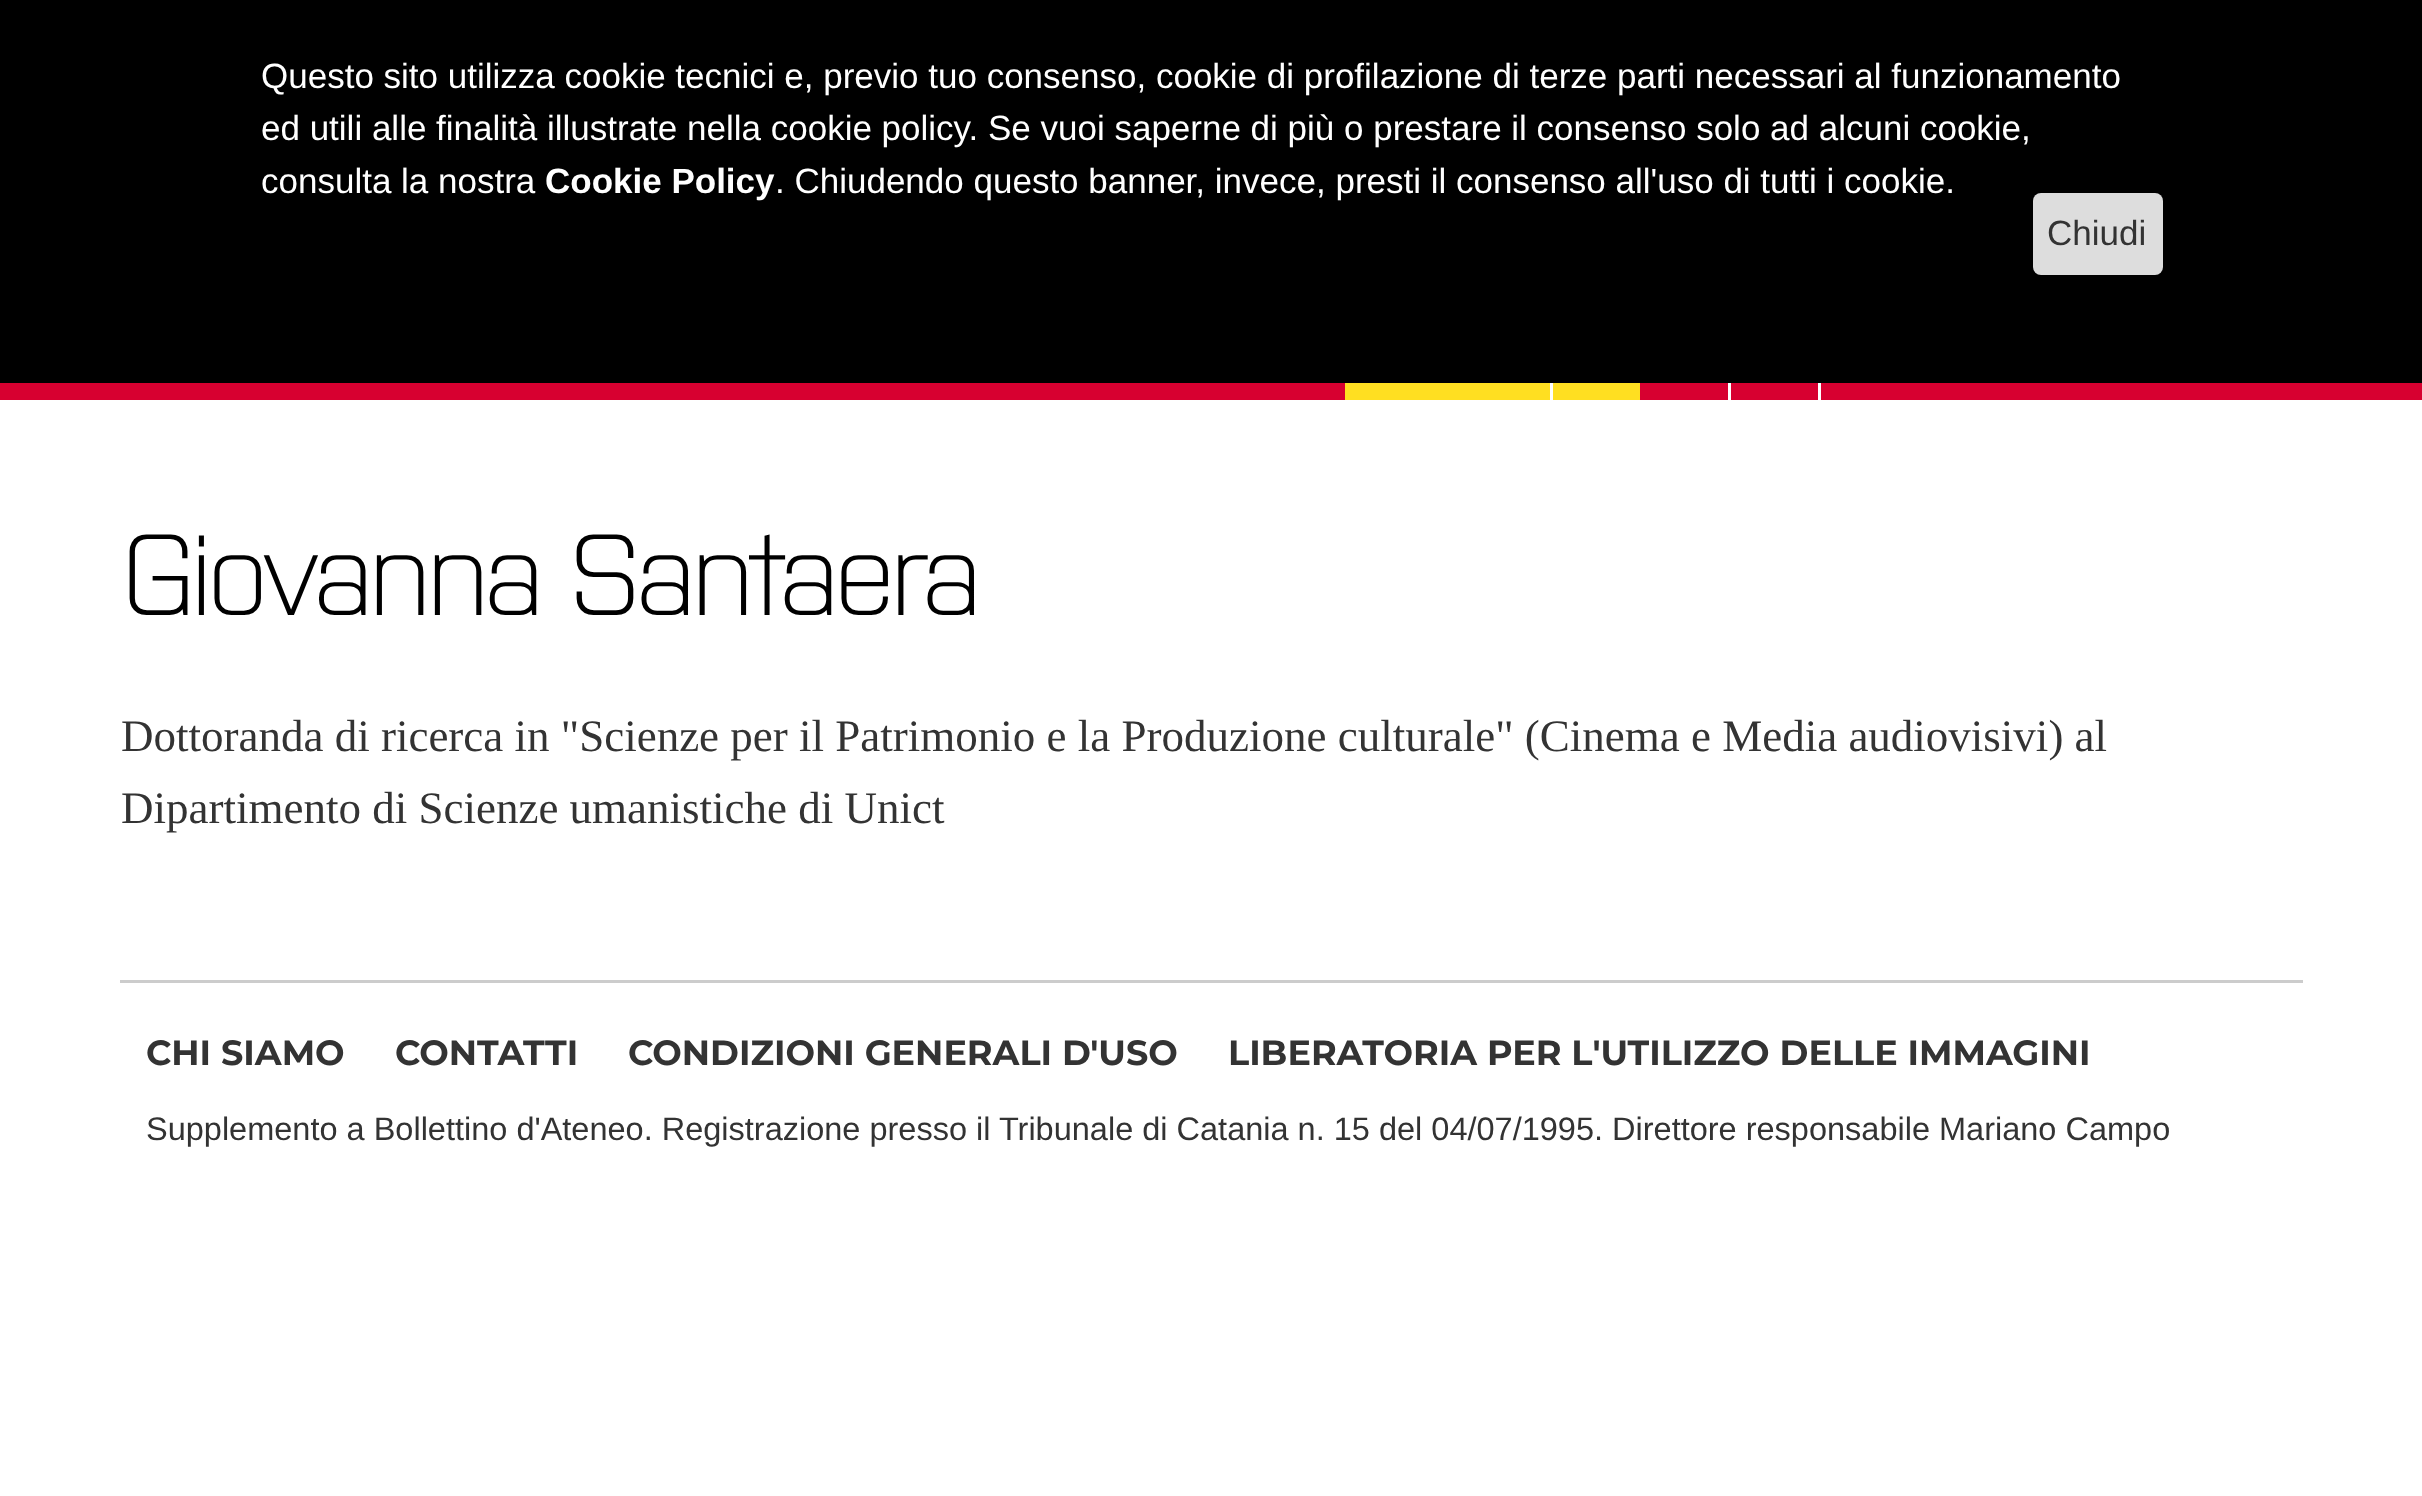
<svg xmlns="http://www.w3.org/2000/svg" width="2422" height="1496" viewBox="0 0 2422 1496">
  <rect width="100%" height="100%" fill="#ffffff"/>
  <rect x="0" y="0" width="2422" height="383" fill="#000000"/>
  <text x="261" y="88" font-family="Liberation Sans" font-size="35" fill="#ffffff">Questo sito utilizza cookie tecnici e, previo tuo consenso, cookie di profilazione di terze parti necessari al funzionamento</text>
  <text x="261" y="140" font-family="Liberation Sans" font-size="35" fill="#ffffff">ed utili alle finalità illustrate nella cookie policy. Se vuoi saperne di più o prestare il consenso solo ad alcuni cookie,</text>
  <text x="261" y="193" font-family="Liberation Sans" font-size="35" fill="#ffffff">consulta la nostra</text>
  <text x="545" y="193" font-family="Liberation Sans" font-size="35" font-weight="bold" fill="#ffffff">Cookie Policy</text>
  <text x="775" y="193" font-family="Liberation Sans" font-size="35" fill="#ffffff">. Chiudendo questo banner, invece, presti il consenso all'uso di tutti i cookie.</text>
  <rect x="2033" y="193" width="130" height="82" rx="8" fill="#dddddd"/>
  <text x="2047" y="245" font-family="Liberation Sans" font-size="35" fill="#333333">Chiudi</text>
  <rect x="0" y="383" width="2422" height="17" fill="#d70030"/>
  <rect x="1345" y="383" width="205" height="17" fill="#ffdf21"/>
  <rect x="1553" y="383" width="87" height="17" fill="#ffdf21"/>
  <rect x="1550" y="383" width="3" height="17" fill="#ffffff"/>
  <rect x="1728" y="383" width="3" height="17" fill="#ffffff"/>
  <rect x="1818" y="383" width="3" height="17" fill="#ffffff"/>
  <text x="121" y="615" font-family="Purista" font-size="115" font-weight="300" letter-spacing="-5.75" fill="#000000">Giovanna Santaera</text>
  <text x="121" y="751" font-family="Liberation Serif" font-size="45" fill="#333333">Dottoranda di ricerca in "Scienze per il Patrimonio e la Produzione culturale" (Cinema e Media audiovisivi) al</text>
  <text x="121" y="823" font-family="Liberation Serif" font-size="45" fill="#333333">Dipartimento di Scienze umanistiche di Unict</text>
  <rect x="120" y="980" width="2183" height="3" fill="#cccccc"/>
  <text x="146" y="1065" font-family="Montserrat" font-size="35" font-weight="100" fill="#333333">CHI SIAMO</text>
  <text x="395" y="1065" font-family="Montserrat" font-size="35" font-weight="100" fill="#333333">CONTATTI</text>
  <text x="628" y="1065" font-family="Montserrat" font-size="35" font-weight="100" fill="#333333">CONDIZIONI GENERALI D'USO</text>
  <text x="1228" y="1065" font-family="Montserrat" font-size="35" font-weight="100" fill="#333333">LIBERATORIA PER L'UTILIZZO DELLE IMMAGINI</text>
  <text x="146" y="1140" font-family="Liberation Sans" font-size="32.5" fill="#333333">Supplemento a Bollettino d'Ateneo. Registrazione presso il Tribunale di Catania n. 15 del 04/07/1995. Direttore responsabile Mariano Campo</text>
</svg>
